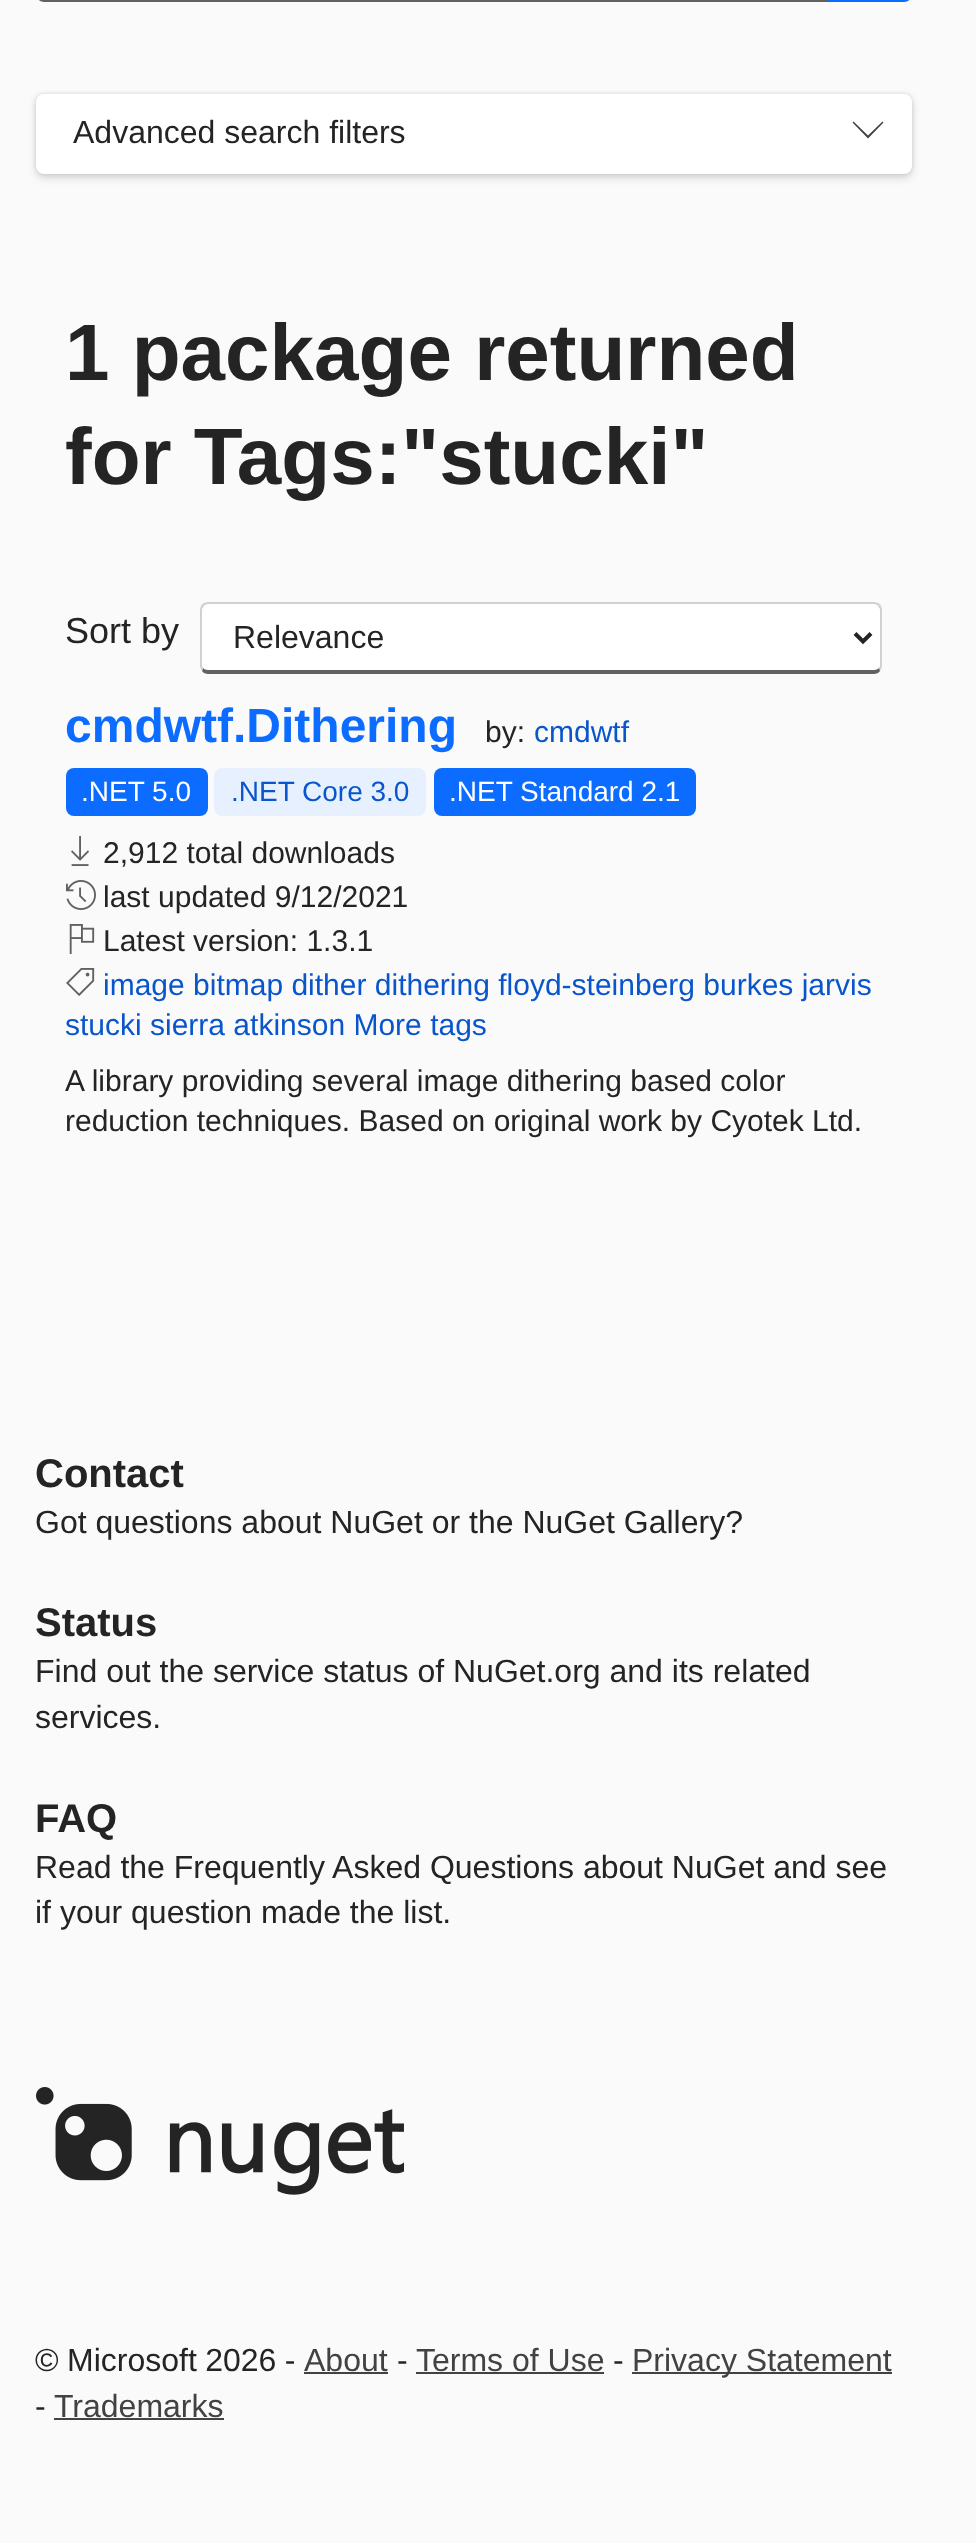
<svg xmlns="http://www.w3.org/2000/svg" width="976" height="2543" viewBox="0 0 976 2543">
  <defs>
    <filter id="blur1" x="-50%" y="-200%" width="200%" height="500%"><feGaussianBlur stdDeviation="4"/></filter>
    <filter id="blur2" x="-50%" y="-200%" width="200%" height="500%"><feGaussianBlur stdDeviation="2"/></filter>
  </defs>
  <rect width="100%" height="100%" fill="#fafafa"/>
  <path d="M830 2L828-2H44C42-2 40-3 39-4L38-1C39 1 42 2 44 2Z" fill="#616161"/>
  <path d="M828-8H904C908.5-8 912-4.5 912 0V-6C912-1.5 908.5 2 904 2H828Z" fill="#0b6cff"/>
  <rect x="36" y="98" width="876" height="80" rx="8" fill="#000000" fill-opacity="0.14" filter="url(#blur1)"/>
  <rect x="36" y="94" width="876" height="80" rx="8" fill="#000000" fill-opacity="0.12" filter="url(#blur2)"/>
  <rect x="36" y="94" width="876" height="80" rx="8" fill="#ffffff"/>
  <text x="73" y="143" font-family="Liberation Sans" font-size="32" fill="#242424">Advanced search filters</text>
  <path d="M882.5 121.5L883.5 122.5L868 138.5L852.5 122.5L853.5 121.5L868 135.5Z" fill="#424242"/>
  <text x="65" y="380" font-family="Liberation Sans" font-size="80" font-weight="bold" fill="#242424">1 package returned</text>
  <text x="65" y="484" font-family="Liberation Sans" font-size="80" font-weight="bold" fill="#242424">for Tags:"stucki"</text>
  <text x="65" y="643" font-family="Liberation Sans" font-size="36" fill="#242424">Sort by</text>
  <path d="M208 604H874C877 604 880 607 880 610V666C880 668 877 670 874 670H208C205 670 202 668 202 666V610C202 607 205 604 208 604Z" fill="#ffffff"/>
  <path d="M208 602C206 602 204 603 202 604L204 606C205 605 206 604 208 604H874C876 604 877 605 878 606L880 604C878 603 876 602 874 602Z" fill="#d1d1d1"/>
  <path d="M882 666V610C882 608 881 606 880 604L878 606L880 609V666L879 668L880 671C881 669 882 668 882 666Z" fill="#d1d1d1"/>
  <path d="M208 674H874C876 674 879 673 880 671L879 668C878 669 876 670 874 670H208C206 670 204 669 203 668L202 671C203 673 206 674 208 674Z" fill="#616161"/>
  <path d="M200 610V666C200 668 201 669 202 671L203 668L202 666V609L204 606L202 604C201 606 200 608 200 610Z" fill="#d1d1d1"/>
  <path d="M855 633.5L863 641.5L871 633.5" fill="none" stroke="#242424" stroke-width="4"/>
  <text x="233" y="648" font-family="Liberation Sans" font-size="32" fill="#242424">Relevance</text>
  <text x="65" y="742" font-family="Liberation Sans" font-size="48" font-weight="bold" fill="#0b6cff">cmdwtf.Dithering</text>
  <text x="485" y="742" font-family="Liberation Sans" font-size="30" fill="#242424">by:</text>
  <text x="534" y="742" font-family="Liberation Sans" font-size="30" fill="#0956cc">cmdwtf</text>
  <rect x="66" y="768" width="142" height="48" rx="8" fill="#0b6cff"/>
  <text x="81" y="801" font-family="Liberation Sans" font-size="28" fill="#ffffff">.NET 5.0</text>
  <rect x="214" y="768" width="212" height="48" rx="8" fill="#e7f0ff"/>
  <text x="231" y="801" font-family="Liberation Sans" font-size="28" fill="#0956cc">.NET Core 3.0</text>
  <rect x="434" y="768" width="262" height="48" rx="8" fill="#0b6cff"/>
  <text x="449" y="801" font-family="Liberation Sans" font-size="28" fill="#ffffff">.NET Standard 2.1</text>
  <image x="71" y="836" width="18" height="30" href="img1.png"/>
  <text x="103" y="863" font-family="Liberation Sans" font-size="30" fill="#242424">2,912 total downloads</text>
  <image x="66" y="880" width="30" height="30" href="img2.png"/>
  <text x="103" y="907" font-family="Liberation Sans" font-size="30" fill="#242424">last updated 9/12/2021</text>
  <image x="69" y="924" width="26" height="30" href="img3.png"/>
  <text x="103" y="951" font-family="Liberation Sans" font-size="30" fill="#242424">Latest version: 1.3.1</text>
  <image x="66" y="968" width="29" height="28" href="img4.png"/>
  <text x="103" y="995" font-family="Liberation Sans" font-size="30" fill="#0956cc">image bitmap dither dithering floyd-steinberg burkes jarvis</text>
  <text x="65" y="1035" font-family="Liberation Sans" font-size="30" fill="#0956cc">stucki sierra atkinson More tags</text>
  <text x="65" y="1091" font-family="Liberation Sans" font-size="30" fill="#242424">A library providing several image dithering based color</text>
  <text x="65" y="1131" font-family="Liberation Sans" font-size="30" fill="#242424">reduction techniques. Based on original work by Cyotek Ltd.</text>
  <text x="35" y="1487" font-family="Liberation Sans" font-size="40" font-weight="bold" fill="#242424">Contact</text>
  <text x="35" y="1533" font-family="Liberation Sans" font-size="32" fill="#242424">Got questions about NuGet or the NuGet Gallery?</text>
  <text x="35" y="1636" font-family="Liberation Sans" font-size="40" font-weight="bold" fill="#242424">Status</text>
  <text x="35" y="1682" font-family="Liberation Sans" font-size="32" fill="#242424">Find out the service status of NuGet.org and its related</text>
  <text x="35" y="1728" font-family="Liberation Sans" font-size="32" fill="#242424">services.</text>
  <text x="35" y="1832" font-family="Liberation Sans" font-size="40" font-weight="bold" fill="#242424">FAQ</text>
  <text x="35" y="1878" font-family="Liberation Sans" font-size="32" fill="#242424">Read the Frequently Asked Questions about NuGet and see</text>
  <text x="35" y="1923" font-family="Liberation Sans" font-size="32" fill="#242424">if your question made the list.</text>
  <image x="36" y="2087" width="368" height="108" href="img5.png"/>
  <text x="35" y="2371" word-spacing="-0.5" font-family="Liberation Sans" font-size="32" fill="#242424">© Microsoft 2026 -</text>
  <text x="304" y="2371" font-family="Liberation Sans" font-size="32" fill="#424242">About</text>
  <rect x="304" y="2372" width="84" height="2" fill="#424242"/>
  <text x="397" y="2371" font-family="Liberation Sans" font-size="32" fill="#242424">-</text>
  <text x="416" y="2371" font-family="Liberation Sans" font-size="32" fill="#424242">Terms of Use</text>
  <rect x="416" y="2372" width="188" height="2" fill="#424242"/>
  <text x="613" y="2371" font-family="Liberation Sans" font-size="32" fill="#242424">-</text>
  <rect x="632" y="2372" width="260" height="2" fill="#424242"/>
  <text x="632" y="2371" font-family="Liberation Sans" font-size="32" fill="#424242">Privacy Statement</text>
  <text x="35" y="2417" font-family="Liberation Sans" font-size="32" fill="#242424">-</text>
  <text x="54" y="2417" font-family="Liberation Sans" font-size="32" fill="#424242">Trademarks</text>
  <rect x="54" y="2418" width="170" height="2" fill="#424242"/>
</svg>
